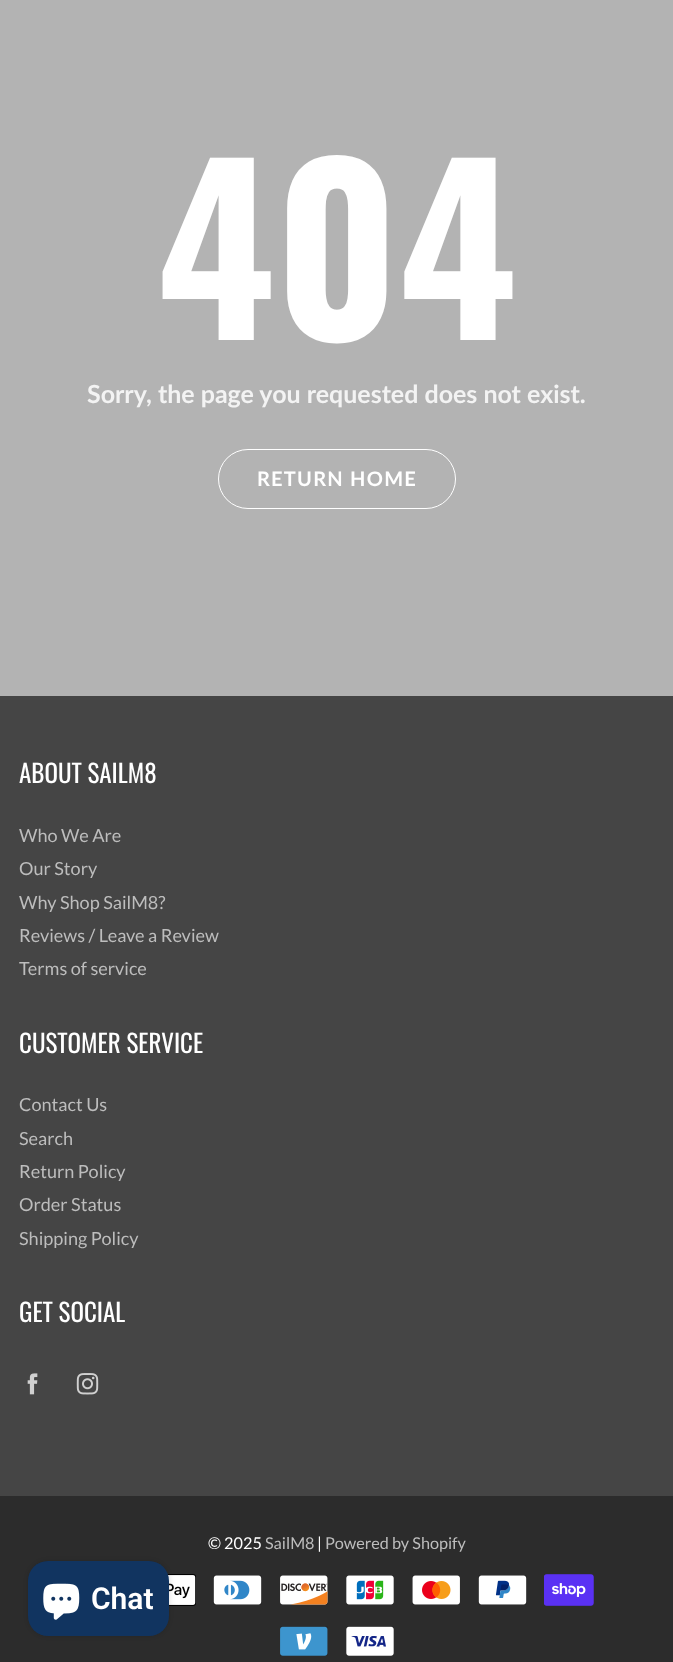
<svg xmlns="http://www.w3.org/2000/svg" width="673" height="1662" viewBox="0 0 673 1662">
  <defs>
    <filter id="blur1" x="-50%" y="-200%" width="200%" height="500%"><feGaussianBlur stdDeviation="3"/></filter>
  </defs>
  <rect width="100%" height="100%" fill="#454545"/>
  <rect x="0" y="0" width="673" height="696" fill="#b3b3b3"/>
  <text x="157" y="340" font-family="Oswald" font-size="225" font-weight="bold" fill="#ffffff">404</text>
  <text x="87" y="403" font-family="Lato" font-size="25" font-weight="bold" fill="#f3f3f3">Sorry, the page you requested does not exist.</text>
  <rect x="218.5" y="449.5" width="237" height="59" rx="29.5" fill="none" stroke="#ffffff"/>
  <text x="257" y="486" font-family="Lato" font-size="20" font-weight="bold" letter-spacing="1.25" fill="#ffffff">RETURN HOME</text>
  <text x="19" y="783" font-family="Oswald" font-size="25" fill="#ffffff">ABOUT SAILM8</text>
  <text x="19" y="842" font-family="Lato" font-size="18.1" fill="#bdbdbd">Who We Are</text>
  <text x="19" y="875" font-family="Lato" font-size="18.1" fill="#bdbdbd">Our Story</text>
  <text x="19" y="909" font-family="Lato" font-size="18.1" fill="#bdbdbd">Why Shop SailM8?</text>
  <text x="19" y="942" font-family="Lato" font-size="18.1" fill="#bdbdbd">Reviews / Leave a Review</text>
  <text x="19" y="975" font-family="Lato" font-size="18.1" fill="#bdbdbd">Terms of service</text>
  <text x="19" y="1053" font-family="Oswald" font-size="25" fill="#ffffff">CUSTOMER SERVICE</text>
  <text x="19" y="1111" font-family="Lato" font-size="18.1" fill="#bdbdbd">Contact Us</text>
  <text x="19" y="1145" font-family="Lato" font-size="18.1" fill="#bdbdbd">Search</text>
  <text x="19" y="1178" font-family="Lato" font-size="18.1" fill="#bdbdbd">Return Policy</text>
  <text x="19" y="1211" font-family="Lato" font-size="18.1" fill="#bdbdbd">Order Status</text>
  <text x="19" y="1245" font-family="Lato" font-size="18.1" fill="#bdbdbd">Shipping Policy</text>
  <text x="19" y="1322" font-family="Oswald" font-size="25" fill="#ffffff">GET SOCIAL</text>
  <image x="27" y="1373" width="11" height="22" href="img1.png"/>
  <image x="76" y="1373" width="23" height="22" href="img2.png"/>
  <rect x="0" y="1496" width="673" height="166" fill="#2c2c2c"/>
  <text x="208" y="1549" font-family="Lato" font-size="16.25" fill="#ffffff">© 2025</text>
  <text x="265" y="1549" font-family="Lato" font-size="16.25" fill="#bdbdbd">SailM8</text>
  <text x="317" y="1549" font-family="Lato" font-size="16.25" fill="#ffffff">|</text>
  <text x="325" y="1549" font-family="Lato" font-size="16.25" fill="#bdbdbd">Powered by Shopify</text>
  <image x="167" y="1574" width="29" height="32" href="img3.png"/>
  <image x="213" y="1575" width="49" height="30" href="img4.png"/>
  <image x="280" y="1575" width="48" height="30" href="img5.png"/>
  <image x="346" y="1575" width="48" height="30" href="img6.png"/>
  <image x="412" y="1575" width="48" height="30" href="img7.png"/>
  <image x="478" y="1575" width="49" height="30" href="img8.png"/>
  <image x="544" y="1574" width="50" height="32" href="img9.png"/>
  <image x="280" y="1626" width="48" height="30" href="img10.png"/>
  <image x="346" y="1626" width="48" height="30" href="img11.png"/>
  <rect x="28" y="1561" width="141" height="75" rx="20" fill="#000000" fill-opacity="0.15" filter="url(#blur1)"/>
  <rect x="28" y="1561" width="141" height="75" rx="20" fill="#113460"/>
  <image x="43" y="1583" width="37" height="37" href="img12.png"/>
  <text x="91" y="1609" font-family="Roboto" font-size="30" font-weight="600" fill="#ffffff">Chat</text>
</svg>
